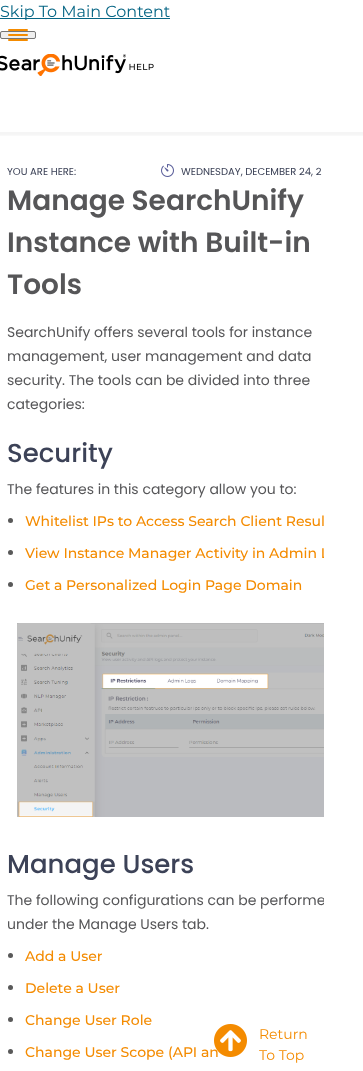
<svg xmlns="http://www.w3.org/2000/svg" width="363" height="1071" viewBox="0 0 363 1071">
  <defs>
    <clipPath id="clip1"><rect x="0" y="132" width="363" height="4"/></clipPath>
    <filter id="blur1" x="-50%" y="-200%" width="200%" height="500%"><feGaussianBlur stdDeviation="1.5"/></filter>
    <clipPath id="clip2"><rect x="7" y="180" width="317" height="891"/></clipPath>
  </defs>
  <rect width="100%" height="100%" fill="#ffffff"/>
  <g clip-path="url(#clip1)">
    <rect x="-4" y="-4" width="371" height="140" fill="#000000" fill-opacity="0.04" filter="url(#blur1)"/>
  </g>
  <rect x="0" y="18" width="170" height="1" fill="#076685"/>
  <text x="0" y="17" font-family="Montserrat" font-size="16" fill="#076685">Skip To Main Content</text>
  <rect x="0.5" y="31.5" width="35" height="7" rx="1.5" fill="#efefef" stroke="#767676"/>
  <rect x="8" y="34" width="20" height="2" rx="1" fill="#f48b00"/>
  <rect x="8" y="29" width="20" height="2" rx="1" fill="#f48b00"/>
  <rect x="8" y="39" width="20" height="2" rx="1" fill="#f48b00"/>
  <image x="0" y="54" width="154" height="22" href="img1.png"/>
  <text x="7" y="175" font-family="Poppins" font-size="10" fill="#3c4257">YOU ARE HERE:</text>
  <image x="161" y="164" width="13" height="13" href="img2.png"/>
  <text x="181" y="175" font-family="Poppins" font-size="10" fill="#3c4257">WEDNESDAY, DECEMBER 24, 2</text>
  <text x="7" y="210" font-family="Poppins" font-size="28" font-weight="600" fill="#565658">Manage SearchUnify</text>
  <text x="7" y="252" font-family="Poppins" font-size="28" font-weight="600" fill="#565658">Instance with Built-in</text>
  <text x="7" y="294" font-family="Poppins" font-size="28" font-weight="600" fill="#565658">Tools</text>
  <text x="7" y="337" font-family="Poppins" font-size="14" fill="#565658">SearchUnify offers several tools for instance</text>
  <text x="7" y="361" font-family="Poppins" font-size="14" fill="#565658">management, user management and data</text>
  <text x="7" y="385" font-family="Poppins" font-size="14" fill="#565658">security. The tools can be divided into three</text>
  <text x="7" y="409" font-family="Poppins" font-size="14" fill="#565658">categories:</text>
  <text x="7" y="462" font-family="Poppins" font-size="26" font-weight="500" fill="#3c4257">Security</text>
  <text x="7" y="494" font-family="Poppins" font-size="14" fill="#565658">The features in this category allow you to:</text>
  <circle cx="10.5" cy="520.5" r="2.5" fill="#595959"/>
  <text x="25" y="526" font-family="Montserrat" font-size="14" font-weight="500" fill="#f48b00">Whitelist IPs to Access Search Client Resul</text>
  <circle cx="10.5" cy="552.5" r="2.5" fill="#595959"/>
  <g clip-path="url(#clip2)">
    <text x="25" y="558" font-family="Montserrat" font-size="14" font-weight="500" fill="#f48b00">View Instance Manager Activity in Admin L</text>
  </g>
  <circle cx="10.5" cy="584.5" r="2.5" fill="#595959"/>
  <text x="25" y="590" font-family="Montserrat" font-size="14" font-weight="500" fill="#f48b00">Get a Personalized Login Page Domain</text>
  <image x="17" y="623" width="307" height="194" href="img3.png"/>
  <text x="7" y="873" font-family="Poppins" font-size="26" font-weight="500" fill="#3c4257">Manage Users</text>
  <g clip-path="url(#clip2)">
    <text x="7" y="905" font-family="Poppins" font-size="14" fill="#565658">The following configurations can be performe</text>
  </g>
  <text x="7" y="929" font-family="Poppins" font-size="14" fill="#565658">under the Manage Users tab.</text>
  <circle cx="10.5" cy="955.5" r="2.5" fill="#595959"/>
  <text x="25" y="961" font-family="Montserrat" font-size="14" font-weight="500" fill="#f48b00">Add a User</text>
  <circle cx="10.5" cy="987.5" r="2.5" fill="#595959"/>
  <text x="25" y="993" font-family="Montserrat" font-size="14" font-weight="500" fill="#f48b00">Delete a User</text>
  <circle cx="10.5" cy="1019.5" r="2.5" fill="#595959"/>
  <text x="25" y="1025" font-family="Montserrat" font-size="14" font-weight="500" fill="#f48b00">Change User Role</text>
  <circle cx="10.5" cy="1051.5" r="2.5" fill="#595959"/>
  <text x="25" y="1057" font-family="Montserrat" font-size="14" font-weight="500" fill="#f48b00">Change User Scope (API an</text>
  <image x="214" y="1024" width="33" height="33" href="img4.png"/>
  <text x="259" y="1039" font-family="Montserrat" font-size="14" fill="#f48b00">Return</text>
  <text x="259" y="1060" font-family="Montserrat" font-size="14" fill="#f48b00">To Top</text>
</svg>
